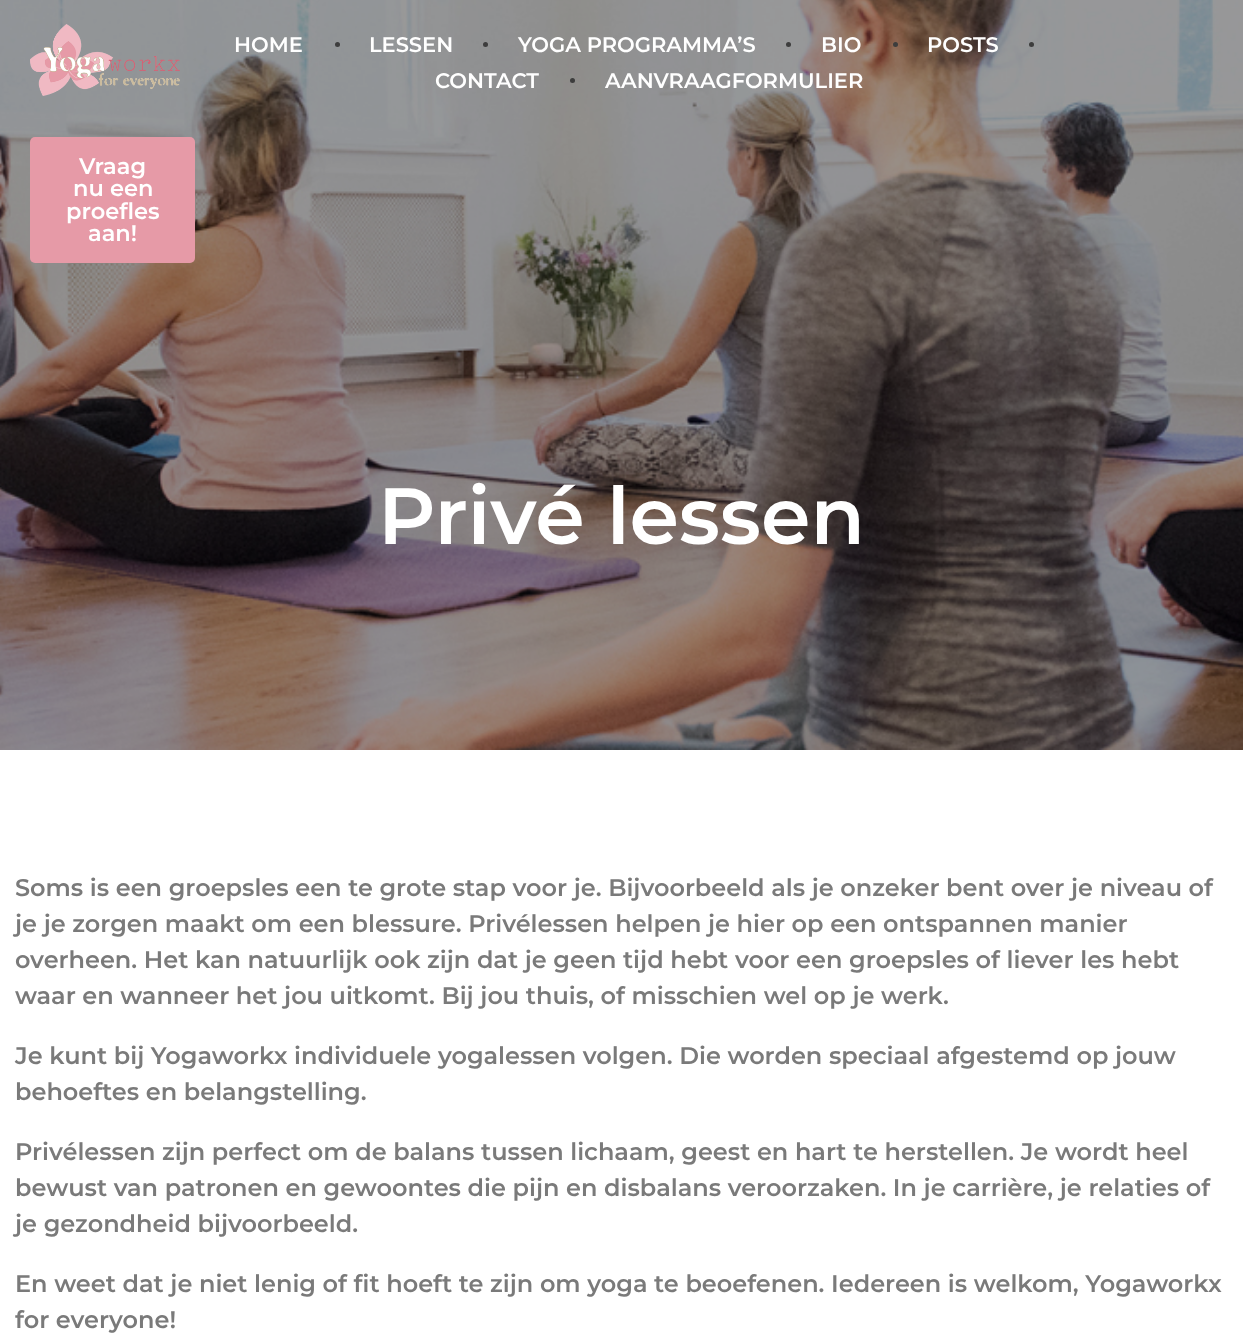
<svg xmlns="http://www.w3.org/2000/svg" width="1243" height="1339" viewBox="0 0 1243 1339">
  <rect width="100%" height="100%" fill="#ffffff"/>
  <image x="0" y="0" width="1243" height="750" href="img1.png"/>
  <image x="30" y="24" width="150" height="72" href="img2.png"/>
  <text x="234" y="52" font-family="Montserrat" font-size="21" font-weight="600" fill="#ffffff">HOME</text>
  <circle cx="337.5" cy="44.5" r="2.5" fill="#3d3d3d"/>
  <text x="369" y="52" font-family="Montserrat" font-size="21" font-weight="600" fill="#ffffff">LESSEN</text>
  <circle cx="485.5" cy="44.5" r="2.5" fill="#3d3d3d"/>
  <text x="518" y="52" font-family="Montserrat" font-size="21" font-weight="600" fill="#ffffff">YOGA PROGRAMMA’S</text>
  <circle cx="788.5" cy="44.5" r="2.5" fill="#3d3d3d"/>
  <text x="821" y="52" font-family="Montserrat" font-size="21" font-weight="600" fill="#ffffff">BIO</text>
  <circle cx="895.5" cy="44.5" r="2.5" fill="#3d3d3d"/>
  <text x="927" y="52" font-family="Montserrat" font-size="21" font-weight="600" fill="#ffffff">POSTS</text>
  <circle cx="1031.5" cy="44.5" r="2.5" fill="#3d3d3d"/>
  <text x="435" y="88" font-family="Montserrat" font-size="21" font-weight="600" fill="#ffffff">CONTACT</text>
  <circle cx="572.5" cy="80.5" r="2.5" fill="#3d3d3d"/>
  <text x="605" y="88" font-family="Montserrat" font-size="21" font-weight="600" fill="#ffffff">AANVRAAGFORMULIER</text>
  <rect x="30" y="137" width="165" height="126" rx="5" fill="#e69aa7"/>
  <text x="79" y="174" font-family="Montserrat" font-size="22.5" font-weight="600" fill="#ffffff">Vraag</text>
  <text x="73" y="196" font-family="Montserrat" font-size="22.5" font-weight="600" fill="#ffffff">nu een</text>
  <text x="66" y="219" font-family="Montserrat" font-size="22.5" font-weight="600" fill="#ffffff">proefles</text>
  <text x="88" y="241" font-family="Montserrat" font-size="22.5" font-weight="600" fill="#ffffff">aan!</text>
  <text x="378" y="544" font-family="Montserrat" font-size="79.5" font-weight="600" fill="#ffffff">Privé lessen</text>
  <text x="15" y="896" font-family="Montserrat" font-size="24" font-weight="600" fill="#7a7a7a">Soms is een groepsles een te grote stap voor je. Bijvoorbeeld als je onzeker bent over je niveau of</text>
  <text x="15" y="932" font-family="Montserrat" font-size="24" font-weight="600" fill="#7a7a7a">je je zorgen maakt om een blessure. Privélessen helpen je hier op een ontspannen manier</text>
  <text x="15" y="968" font-family="Montserrat" font-size="24" font-weight="600" fill="#7a7a7a">overheen. Het kan natuurlijk ook zijn dat je geen tijd hebt voor een groepsles of liever les hebt</text>
  <text x="15" y="1004" font-family="Montserrat" font-size="24" font-weight="600" fill="#7a7a7a">waar en wanneer het jou uitkomt. Bij jou thuis, of misschien wel op je werk.</text>
  <text x="15" y="1064" font-family="Montserrat" font-size="24" font-weight="600" fill="#7a7a7a">Je kunt bij Yogaworkx individuele yogalessen volgen. Die worden speciaal afgestemd op jouw</text>
  <text x="15" y="1100" font-family="Montserrat" font-size="24" font-weight="600" fill="#7a7a7a">behoeftes en belangstelling.</text>
  <text x="15" y="1160" font-family="Montserrat" font-size="24" font-weight="600" fill="#7a7a7a">Privélessen zijn perfect om de balans tussen lichaam, geest en hart te herstellen. Je wordt heel</text>
  <text x="15" y="1196" font-family="Montserrat" font-size="24" font-weight="600" fill="#7a7a7a">bewust van patronen en gewoontes die pijn en disbalans veroorzaken. In je carrière, je relaties of</text>
  <text x="15" y="1232" font-family="Montserrat" font-size="24" font-weight="600" fill="#7a7a7a">je gezondheid bijvoorbeeld.</text>
  <text x="15" y="1292" font-family="Montserrat" font-size="24" font-weight="600" fill="#7a7a7a">En weet dat je niet lenig of fit hoeft te zijn om yoga te beoefenen. Iedereen is welkom, Yogaworkx</text>
  <text x="15" y="1328" font-family="Montserrat" font-size="24" font-weight="600" fill="#7a7a7a">for everyone!</text>
</svg>
